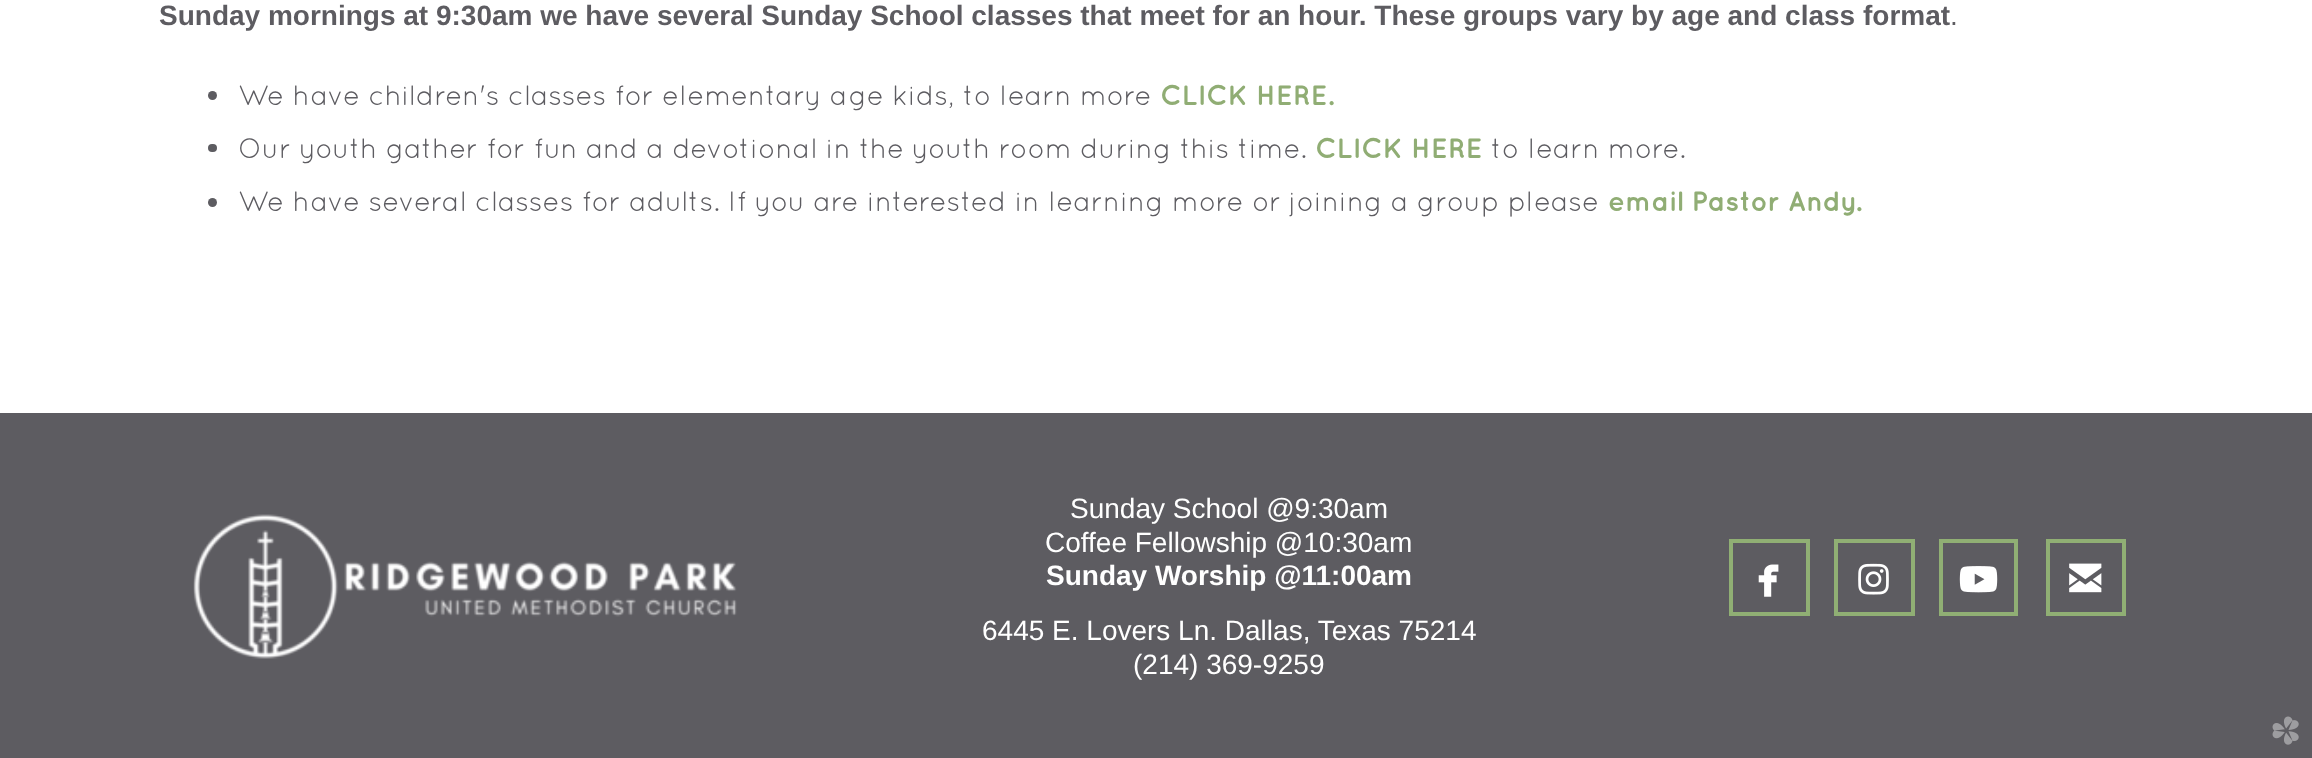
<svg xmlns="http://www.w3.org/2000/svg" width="2312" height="758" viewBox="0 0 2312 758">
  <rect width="100%" height="100%" fill="#5d5c61"/>
  <rect x="0" y="0" width="2312" height="413" fill="#ffffff"/>
  <text x="159" y="25" font-family="Liberation Sans" font-size="28" font-weight="bold" fill="#5d5c61">Sunday mornings at 9:30am we have several Sunday School classes that meet for an hour. These groups vary by age and class format</text>
  <text x="1950" y="25" font-family="Liberation Sans" font-size="28" fill="#5d5c61">.</text>
  <circle cx="212.5" cy="95.5" r="4.5" fill="#5d5c61"/>
  <text x="238" y="105" font-family="Quicksand" font-size="28" fill="#5d5c61">We have children's classes for elementary age kids, to learn more</text>
  <text x="1160" y="105" font-family="Quicksand" font-size="28" font-weight="bold" fill="#90ad74">CLICK HERE.</text>
  <rect x="208" y="144" width="9" height="8" rx="4" fill="#5d5c61"/>
  <text x="238" y="158" font-family="Quicksand" font-size="28" fill="#5d5c61">Our youth gather for fun and a devotional in the youth room during this time.</text>
  <text x="1315" y="158" font-family="Quicksand" font-size="28" font-weight="bold" fill="#90ad74">CLICK HERE</text>
  <text x="1491" y="158" font-family="Quicksand" font-size="28" fill="#5d5c61">to learn more.</text>
  <circle cx="212.5" cy="202.5" r="4.5" fill="#5d5c61"/>
  <text x="238" y="211" font-family="Quicksand" font-size="28" fill="#5d5c61">We have several classes for adults. If you are interested in learning more or joining a group please</text>
  <text x="1608" y="211" font-family="Quicksand" font-size="28" font-weight="bold" fill="#90ad74">email Pastor Andy.</text>
  <image x="193" y="514" width="544" height="145" href="img1.png"/>
  <text x="1070" y="518" font-family="Liberation Sans" font-size="28" fill="#ffffff">Sunday School @9:30am</text>
  <text x="1045" y="552" font-family="Liberation Sans" font-size="28" fill="#ffffff">Coffee Fellowship @10:30am</text>
  <text x="1046" y="585" font-family="Liberation Sans" font-size="28" font-weight="bold" fill="#ffffff">Sunday Worship @11:00am</text>
  <text x="982" y="640" font-family="Liberation Sans" font-size="28" fill="#ffffff">6445 E. Lovers Ln. Dallas, Texas 75214</text>
  <text x="1133" y="674" font-family="Liberation Sans" font-size="28" fill="#ffffff">(214) 369-9259</text>
  <rect x="1731" y="541" width="77" height="73" fill="none" stroke="#90af74" stroke-width="4"/>
  <rect x="1836" y="541" width="77" height="73" fill="none" stroke="#90af74" stroke-width="4"/>
  <rect x="1941" y="541" width="75" height="73" fill="none" stroke="#90af74" stroke-width="4"/>
  <rect x="2048" y="541" width="76" height="73" fill="none" stroke="#90af74" stroke-width="4"/>
  <image x="1758" y="564" width="21" height="33" href="img2.png"/>
  <image x="1858" y="563" width="31" height="32" href="img3.png"/>
  <image x="1959" y="566" width="39" height="27" href="img4.png"/>
  <image x="2069" y="563" width="33" height="30" href="img5.png"/>
  <image x="2272" y="716" width="27" height="29" href="img6.png"/>
</svg>
